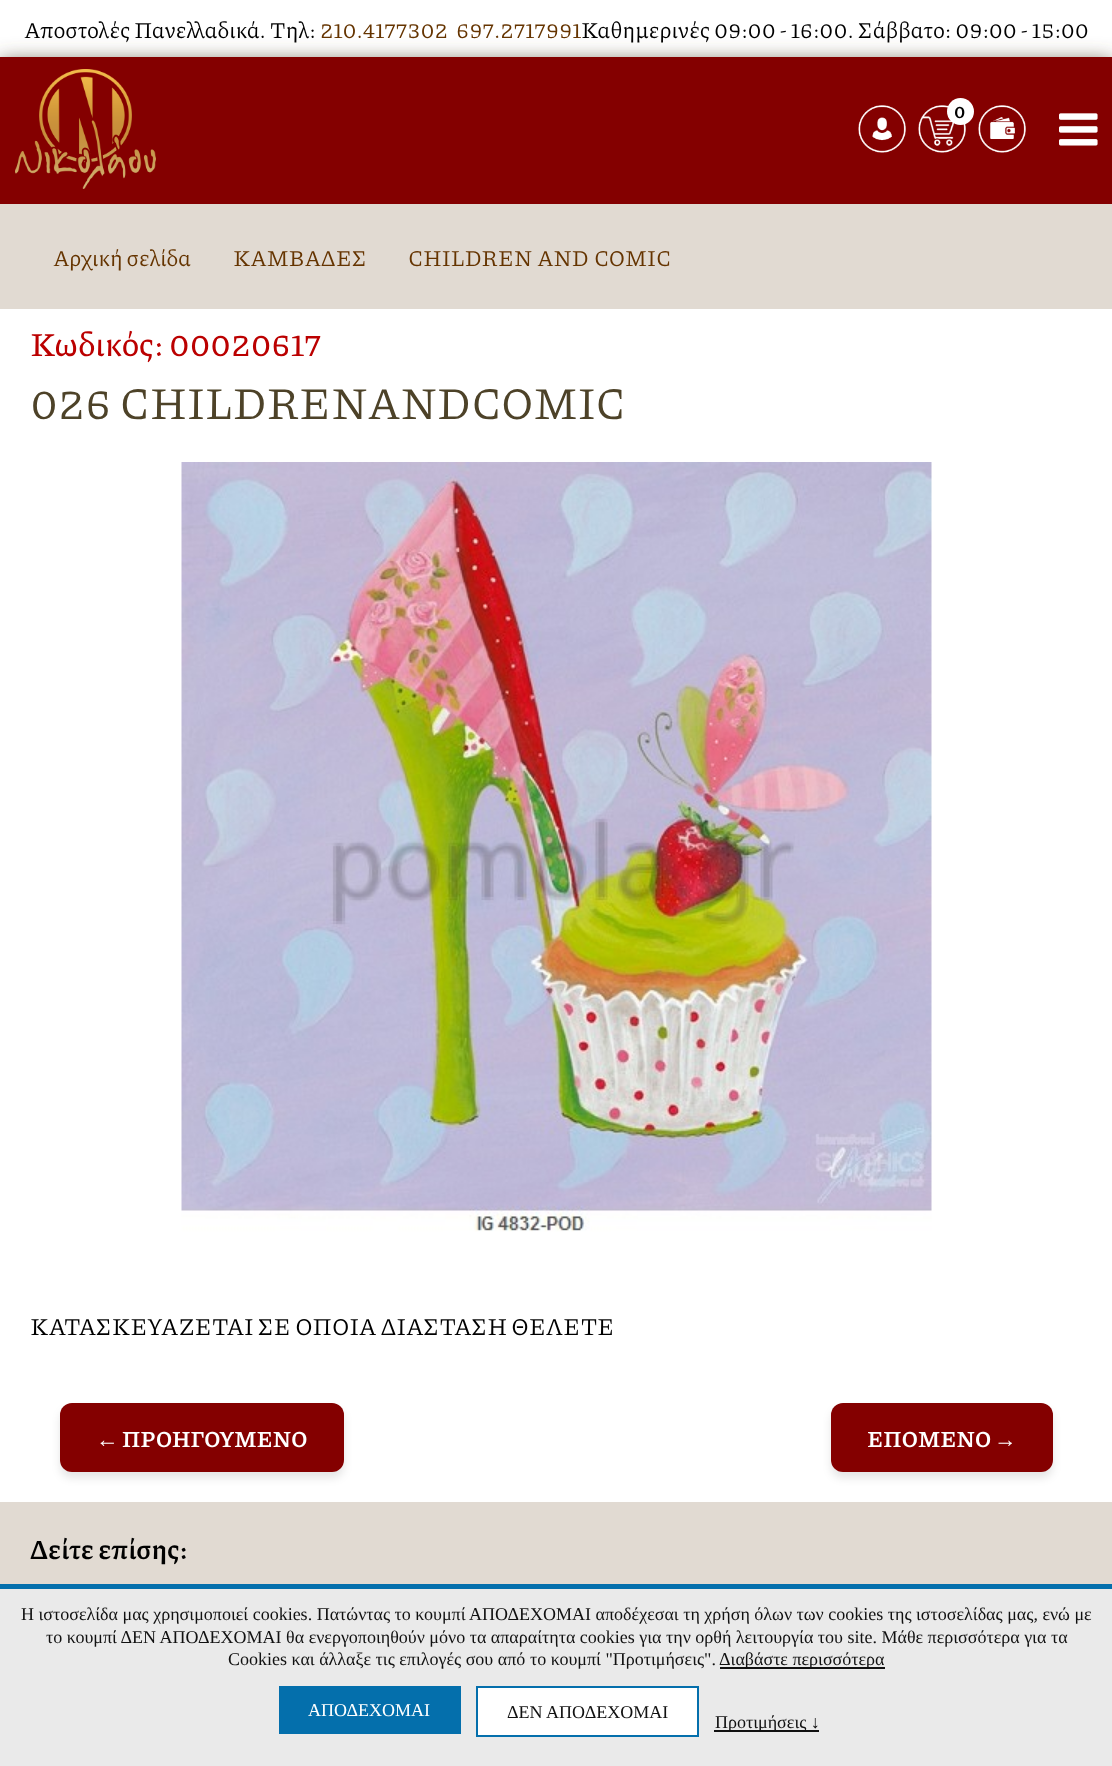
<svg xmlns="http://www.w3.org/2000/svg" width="1112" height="1766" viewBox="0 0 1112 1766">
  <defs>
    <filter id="blur1" x="-50%" y="-200%" width="200%" height="500%"><feGaussianBlur stdDeviation="10.5"/></filter>
    <filter id="blur2" x="-50%" y="-200%" width="200%" height="500%"><feGaussianBlur stdDeviation="4.5"/></filter>
  </defs>
  <rect width="100%" height="100%" fill="#ffffff"/>
  <rect x="0" y="62" width="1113" height="147" fill="#5f543f" filter="url(#blur1)"/>
  <text x="24" y="38" font-family="Piazzolla" font-size="22.5" fill="#000000">Αποστολές Πανελλαδικά. Tηλ:</text>
  <text x="320" y="38" font-family="Piazzolla" font-size="22.5" fill="#653400">210.4177302</text>
  <text x="456" y="38" font-family="Piazzolla" font-size="22.5" fill="#653400">697.2717991</text>
  <text x="581" y="38" font-family="Piazzolla" font-size="22.5" fill="#000000">Καθημερινές 09:00 - 16:00. Σάββατο: 09:00 - 15:00</text>
  <rect x="0" y="57" width="1112" height="147" fill="#840000"/>
  <image x="15" y="69" width="141" height="120" href="img1.png"/>
  <image x="858" y="105" width="48" height="48" href="img2.png"/>
  <image x="918" y="105" width="48" height="48" href="img3.png"/>
  <circle cx="960.5" cy="111.5" r="13.5" fill="#ffffff"/>
  <text x="954" y="118" font-family="Piazzolla" font-size="18" font-weight="bold" fill="#000000">0</text>
  <image x="978" y="105" width="48" height="48" href="img4.png"/>
  <image x="1059" y="113" width="39" height="33" href="img5.png"/>
  <rect x="0" y="204" width="1112" height="1380" fill="#e1dad2"/>
  <text x="53" y="266" font-family="Piazzolla" font-size="22.5" fill="#653400">Αρχική σελίδα</text>
  <text x="233" y="266" font-family="Piazzolla" font-size="22.5" fill="#653400">ΚΑΜΒΑΔΕΣ</text>
  <text x="408" y="266" word-spacing="1" font-family="Piazzolla" font-size="22.5" fill="#653400">CHILDREN AND COMIC</text>
  <rect x="0" y="309" width="1112" height="1193" fill="#ffffff"/>
  <text x="30" y="356" font-family="Piazzolla" font-size="33" font-weight="500" fill="#bb0000">Κωδικός: 00020617</text>
  <text x="30" y="419" font-family="Piazzolla" font-size="45" fill="#4d4228">026 CHILDRENANDCOMIC</text>
  <image x="181" y="462" width="751" height="770" href="img6.png"/>
  <text x="30" y="1335" word-spacing="-1.5" font-family="Piazzolla" font-size="24" fill="#000000">ΚΑΤΑΣΚΕΥΑΖΕΤΑΙ ΣΕ ΟΠΟΙΑ ΔΙΑΣΤΑΣΗ ΘΕΛΕΤΕ</text>
  <rect x="60" y="1409" width="284" height="69" rx="12" fill="#000000" fill-opacity="0.1" filter="url(#blur2)"/>
  <rect x="60" y="1403" width="284" height="69" rx="12" fill="#840000"/>
  <text x="96" y="1447" font-family="Liberation Sans" font-size="22.5" font-weight="bold" fill="#ffffff">←</text>
  <text x="122" y="1447" font-family="Piazzolla" font-size="22.5" font-weight="bold" fill="#ffffff">ΠΡΟΗΓΟΥΜΕΝΟ</text>
  <rect x="831" y="1409" width="222" height="69" rx="12" fill="#000000" fill-opacity="0.1" filter="url(#blur2)"/>
  <rect x="831" y="1403" width="222" height="69" rx="12" fill="#840000"/>
  <text x="867" y="1447" font-family="Piazzolla" font-size="22.5" font-weight="bold" fill="#ffffff">ΕΠΟΜΕΝΟ</text>
  <text x="994" y="1447" font-family="Liberation Sans" font-size="22.5" font-weight="bold" fill="#ffffff">→</text>
  <text x="30" y="1559" font-family="Piazzolla" font-size="27" font-weight="bold" fill="#000000">Δείτε επίσης:</text>
  <rect x="0" y="1589" width="1112" height="177" fill="#eaeaea"/>
  <rect x="0" y="1584" width="1112" height="5" fill="#046fac"/>
  <text x="21" y="1620" font-family="Liberation Serif" font-size="18" fill="#111111">Η ιστοσελίδα μας χρησιμοποιεί cookies. Πατώντας το κουμπί ΑΠΟΔΕΧΟΜΑΙ αποδέχεσαι τη χρήση όλων των cookies της ιστοσελίδας μας, ενώ με</text>
  <text x="46" y="1643" font-family="Liberation Serif" font-size="18" fill="#111111">το κουμπί ΔΕΝ ΑΠΟΔΕΧΟΜΑΙ θα ενεργοποιηθούν μόνο τα απαραίτητα cookies για την ορθή λειτουργία του site. Μάθε περισσότερα για τα</text>
  <text x="228" y="1665" font-family="Liberation Serif" font-size="18" fill="#111111">Cookies και άλλαξε τις επιλογές σου από</text>
  <text x="530" y="1665" font-family="Liberation Serif" font-size="18" fill="#111111">το κουμπί "Προτιμήσεις".</text>
  <rect x="720" y="1667" width="165" height="2" fill="#111111"/>
  <text x="719" y="1665" font-family="Liberation Serif" font-size="18" fill="#111111">Διαβάστε περισσότερα</text>
  <rect x="279" y="1686" width="182" height="48" fill="#046fac"/>
  <text x="308" y="1716" font-family="Liberation Serif" font-size="18" fill="#ffffff">ΑΠΟΔΕΧΟΜΑΙ</text>
  <rect x="477" y="1687" width="221" height="49" fill="#ffffff" stroke="#046fac" stroke-width="2"/>
  <text x="507" y="1718" font-family="Liberation Serif" font-size="18" fill="#111111">ΔΕΝ ΑΠΟΔΕΧΟΜΑΙ</text>
  <rect x="714" y="1730" width="105" height="2" fill="#111111"/>
  <text x="715" y="1728" font-family="Liberation Serif" font-size="18" fill="#111111">Προτιμήσεις ↓</text>
</svg>
